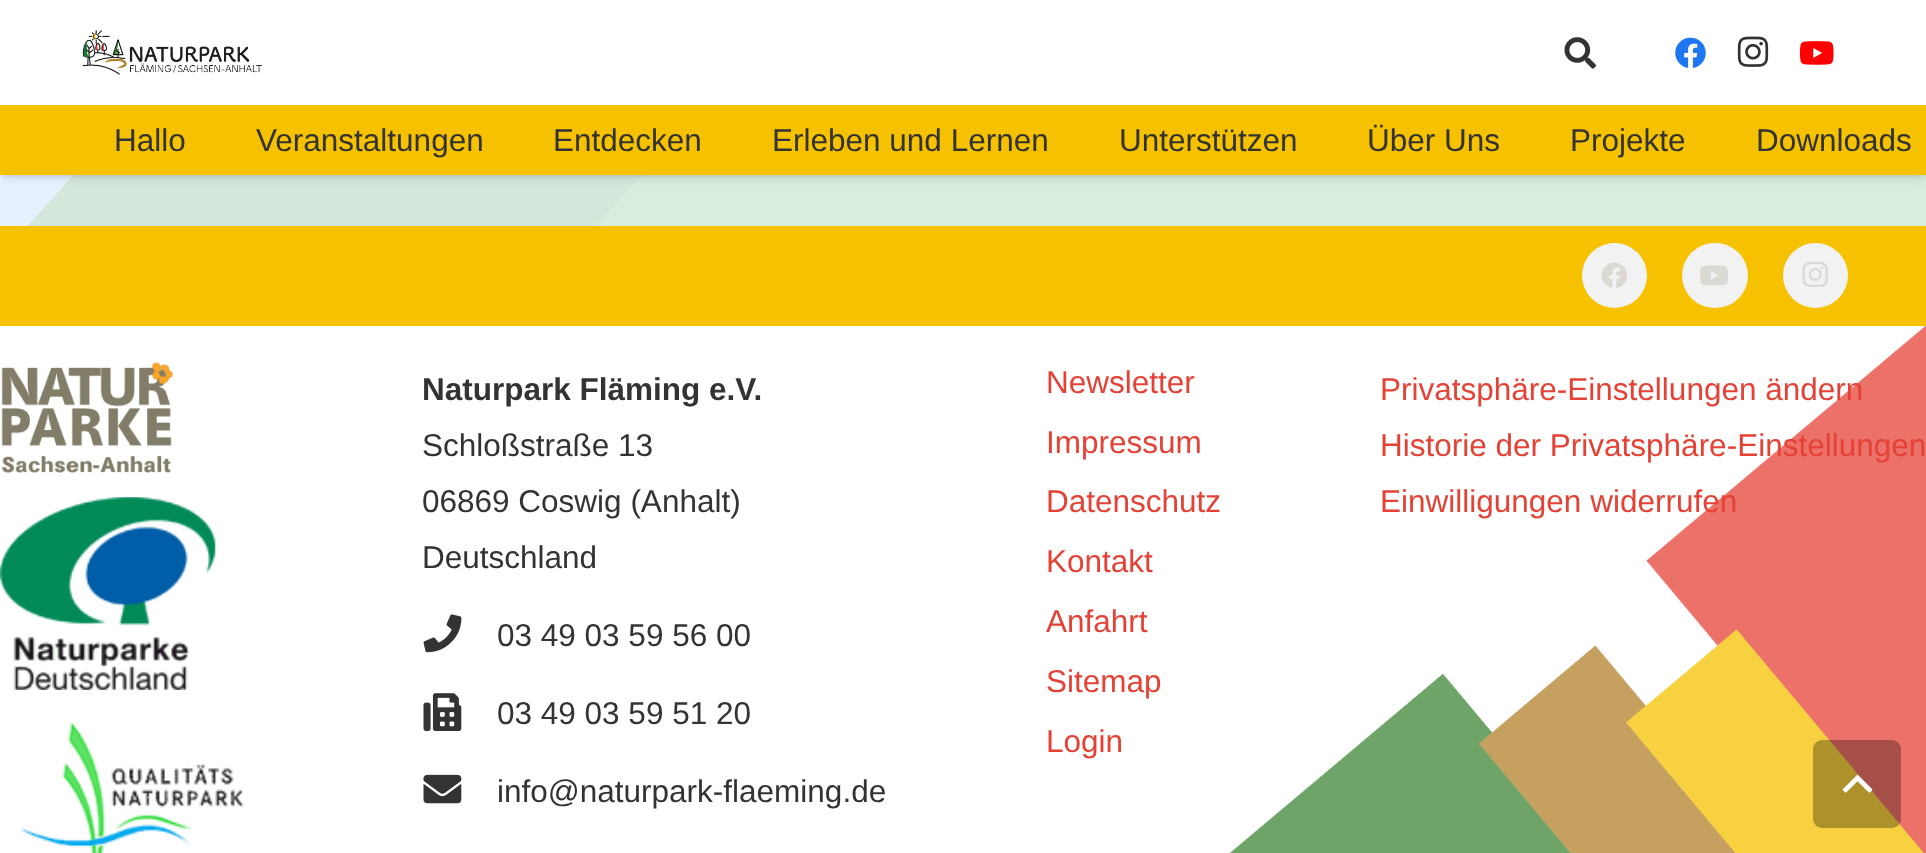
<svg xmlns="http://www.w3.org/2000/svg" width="1926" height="853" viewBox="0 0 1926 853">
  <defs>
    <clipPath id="clip1"><rect x="0" y="0" width="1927" height="226"/></clipPath>
    <filter id="blur1" x="-50%" y="-200%" width="200%" height="500%"><feGaussianBlur stdDeviation="1"/></filter>
    <filter id="blur2" x="-50%" y="-200%" width="200%" height="500%"><feGaussianBlur stdDeviation="4.5"/></filter>
  </defs>
  <rect width="100%" height="100%" fill="#ffffff"/>
  <rect x="0" y="175" width="74" height="51" fill="#e7f1fd"/>
  <g clip-path="url(#clip1)">
    <path d="M1565 618H0V256L602-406Z" fill="#d5e7db"/>
    <path d="M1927-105V618H241L1385-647Z" fill="#d8edde"/>
  </g>
  <rect x="137" y="0" width="1789" height="105" fill="#ffffff"/>
  <image x="82" y="30" width="180" height="45" href="img1.png"/>
  <image x="1564" y="37" width="32" height="32" href="img2.png"/>
  <image x="1675" y="37" width="31" height="31" href="img3.png"/>
  <image x="1737" y="36" width="32" height="31" href="img4.png"/>
  <image x="1799" y="41" width="35" height="24" href="img5.png"/>
  <rect x="2" y="110" width="1923" height="67" fill="#000000" fill-opacity="0.05" filter="url(#blur1)"/>
  <rect x="2" y="112" width="1923" height="67" fill="#000000" fill-opacity="0.1" filter="url(#blur2)"/>
  <rect x="0" y="105" width="1926" height="70" fill="#f6c200"/>
  <text x="114" y="151" font-family="Liberation Sans" font-size="31.5" fill="#333333">Hallo</text>
  <text x="256" y="151" font-family="Liberation Sans" font-size="31.5" fill="#333333">Veranstaltungen</text>
  <text x="553" y="151" font-family="Liberation Sans" font-size="31.5" fill="#333333">Entdecken</text>
  <text x="772" y="151" font-family="Liberation Sans" font-size="31.5" fill="#333333">Erleben und Lernen</text>
  <text x="1119" y="151" font-family="Liberation Sans" font-size="31.5" fill="#333333">Unterstützen</text>
  <text x="1367" y="151" font-family="Liberation Sans" font-size="31.5" fill="#333333">Über Uns</text>
  <text x="1570" y="151" font-family="Liberation Sans" font-size="31.5" fill="#333333">Projekte</text>
  <text x="1756" y="151" font-family="Liberation Sans" font-size="31.5" fill="#333333">Downloads</text>
  <rect x="0" y="226" width="1926" height="100" fill="#f6c200"/>
  <circle cx="1614.5" cy="275.5" r="32.5" fill="#f2f2f2"/>
  <image x="1601" y="262" width="26" height="26" href="img6.png"/>
  <rect x="1682" y="243" width="66" height="65" rx="32.5" fill="#f2f2f2"/>
  <image x="1700" y="265" width="28" height="21" href="img7.png"/>
  <circle cx="1815.5" cy="275.5" r="32.5" fill="#f2f2f2"/>
  <image x="1802" y="261" width="26" height="26" href="img8.png"/>
  <image x="1229" y="325" width="697" height="528" href="img9.png"/>
  <image x="1" y="362" width="173" height="111" href="img10.png"/>
  <image x="0" y="497" width="216" height="193" href="img11.png"/>
  <image x="20" y="722" width="224" height="131" href="img12.png"/>
  <text x="422" y="400" font-family="Liberation Sans" font-size="31.5" font-weight="bold" fill="#333333">Naturpark Fläming e.V.</text>
  <text x="422" y="456" font-family="Liberation Sans" font-size="31.5" fill="#333333">Schloßstraße 13</text>
  <text x="422" y="512" font-family="Liberation Sans" font-size="31.5" fill="#333333">06869 Coswig (Anhalt)</text>
  <text x="422" y="568" font-family="Liberation Sans" font-size="31.5" fill="#333333">Deutschland</text>
  <image x="423" y="614" width="39" height="39" href="img13.png"/>
  <text x="497" y="646" font-family="Liberation Sans" font-size="31.5" fill="#333333">03 49 03 59 56 00</text>
  <image x="423" y="693" width="39" height="38" href="img14.png"/>
  <text x="497" y="724" font-family="Liberation Sans" font-size="31.5" fill="#333333">03 49 03 59 51 20</text>
  <image x="423" y="774" width="39" height="30" href="img15.png"/>
  <text x="497" y="802" font-family="Liberation Sans" font-size="31.5" fill="#333333">info@naturpark-flaeming.de</text>
  <text x="1046" y="393" font-family="Liberation Sans" font-size="31.5" fill="#e54135">Newsletter</text>
  <text x="1046" y="453" font-family="Liberation Sans" font-size="31.5" fill="#e54135">Impressum</text>
  <text x="1046" y="512" font-family="Liberation Sans" font-size="31.5" fill="#e54135">Datenschutz</text>
  <text x="1046" y="572" font-family="Liberation Sans" font-size="31.5" fill="#e54135">Kontakt</text>
  <text x="1046" y="632" font-family="Liberation Sans" font-size="31.5" fill="#e54135">Anfahrt</text>
  <text x="1046" y="692" font-family="Liberation Sans" font-size="31.5" fill="#e54135">Sitemap</text>
  <text x="1046" y="752" font-family="Liberation Sans" font-size="31.5" fill="#e54135">Login</text>
  <text x="1380" y="400" font-family="Liberation Sans" font-size="31.5" fill="#e54135">Privatsphäre-Einstellungen ändern</text>
  <text x="1380" y="456" font-family="Liberation Sans" font-size="31.5" fill="#e54135">Historie der Privatsphäre-Einstellungen</text>
  <text x="1380" y="512" font-family="Liberation Sans" font-size="31.5" fill="#e54135">Einwilligungen widerrufen</text>
  <rect x="1813" y="740" width="88" height="88" rx="9" fill="#000000" fill-opacity="0.3"/>
  <image x="1842" y="774" width="31" height="19" href="img16.png"/>
</svg>
